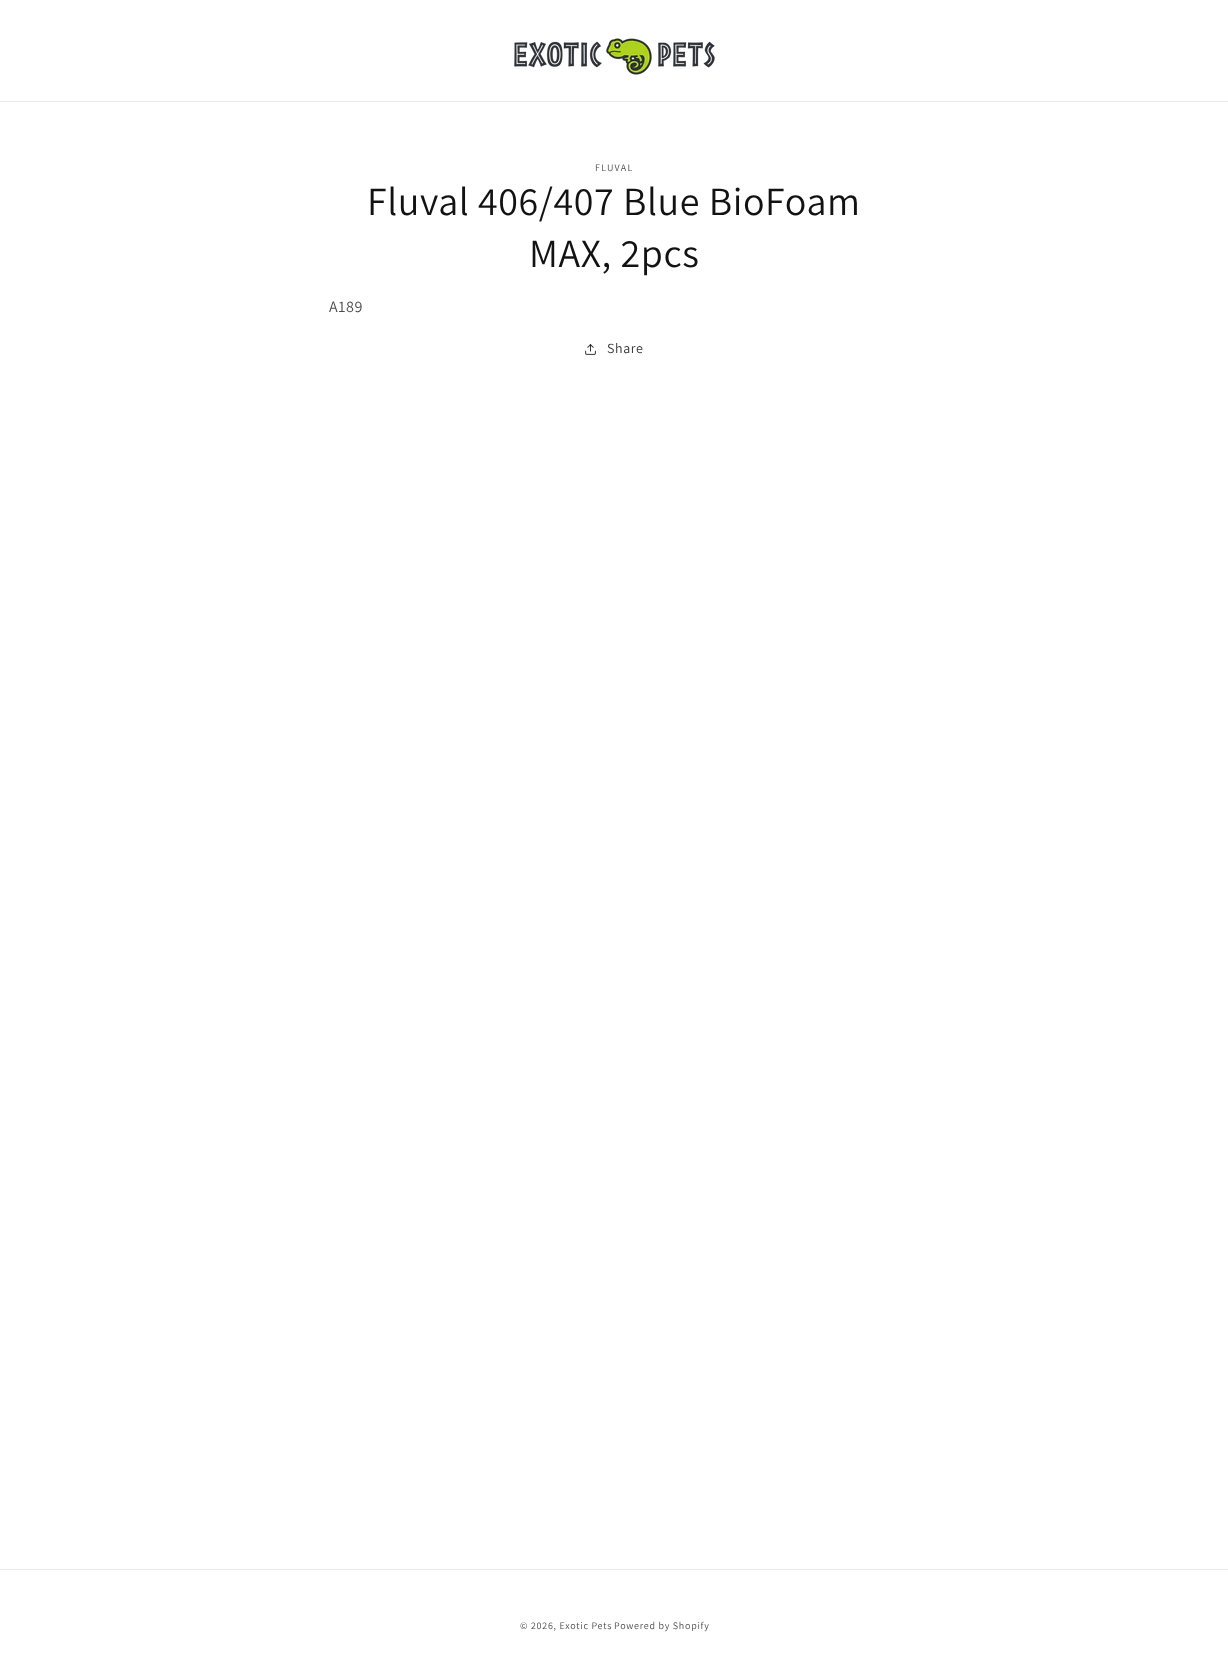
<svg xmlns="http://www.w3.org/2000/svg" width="1228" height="1665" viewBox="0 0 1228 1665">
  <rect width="100%" height="100%" fill="#ffffff"/>
  <rect x="0" y="101" width="1228" height="1" fill="#ececec"/>
  <image x="514" y="38" width="201" height="37" href="img1.png"/>
  <text x="595" y="171" font-family="Assistant" font-size="10" letter-spacing="1.25" fill="#4d4d4d">FLUVAL</text>
  <text x="367" y="215" font-family="Assistant" font-size="40" letter-spacing="0.6" fill="#121212">Fluval 406/407 Blue BioFoam</text>
  <text x="529" y="267" font-family="Assistant" font-size="40" letter-spacing="0.6" fill="#121212">MAX, 2pcs</text>
  <text x="329" y="312" font-family="Assistant" font-size="16" letter-spacing="0.6" fill="#4d4d4d">A189</text>
  <image x="585" y="344" width="11" height="11" href="img2.png"/>
  <text x="607" y="353" font-family="Assistant" font-size="14" letter-spacing="0.6" fill="#363636">Share</text>
  <rect x="0" y="1569" width="1228" height="1" fill="#ececec"/>
  <text x="520" y="1629" font-family="Assistant" font-size="10" letter-spacing="0.75" fill="#4d4d4d">© 2026, Exotic Pets</text>
  <text x="614" y="1629" font-family="Assistant" font-size="10" letter-spacing="0.75" fill="#4d4d4d">Powered by Shopify</text>
</svg>
